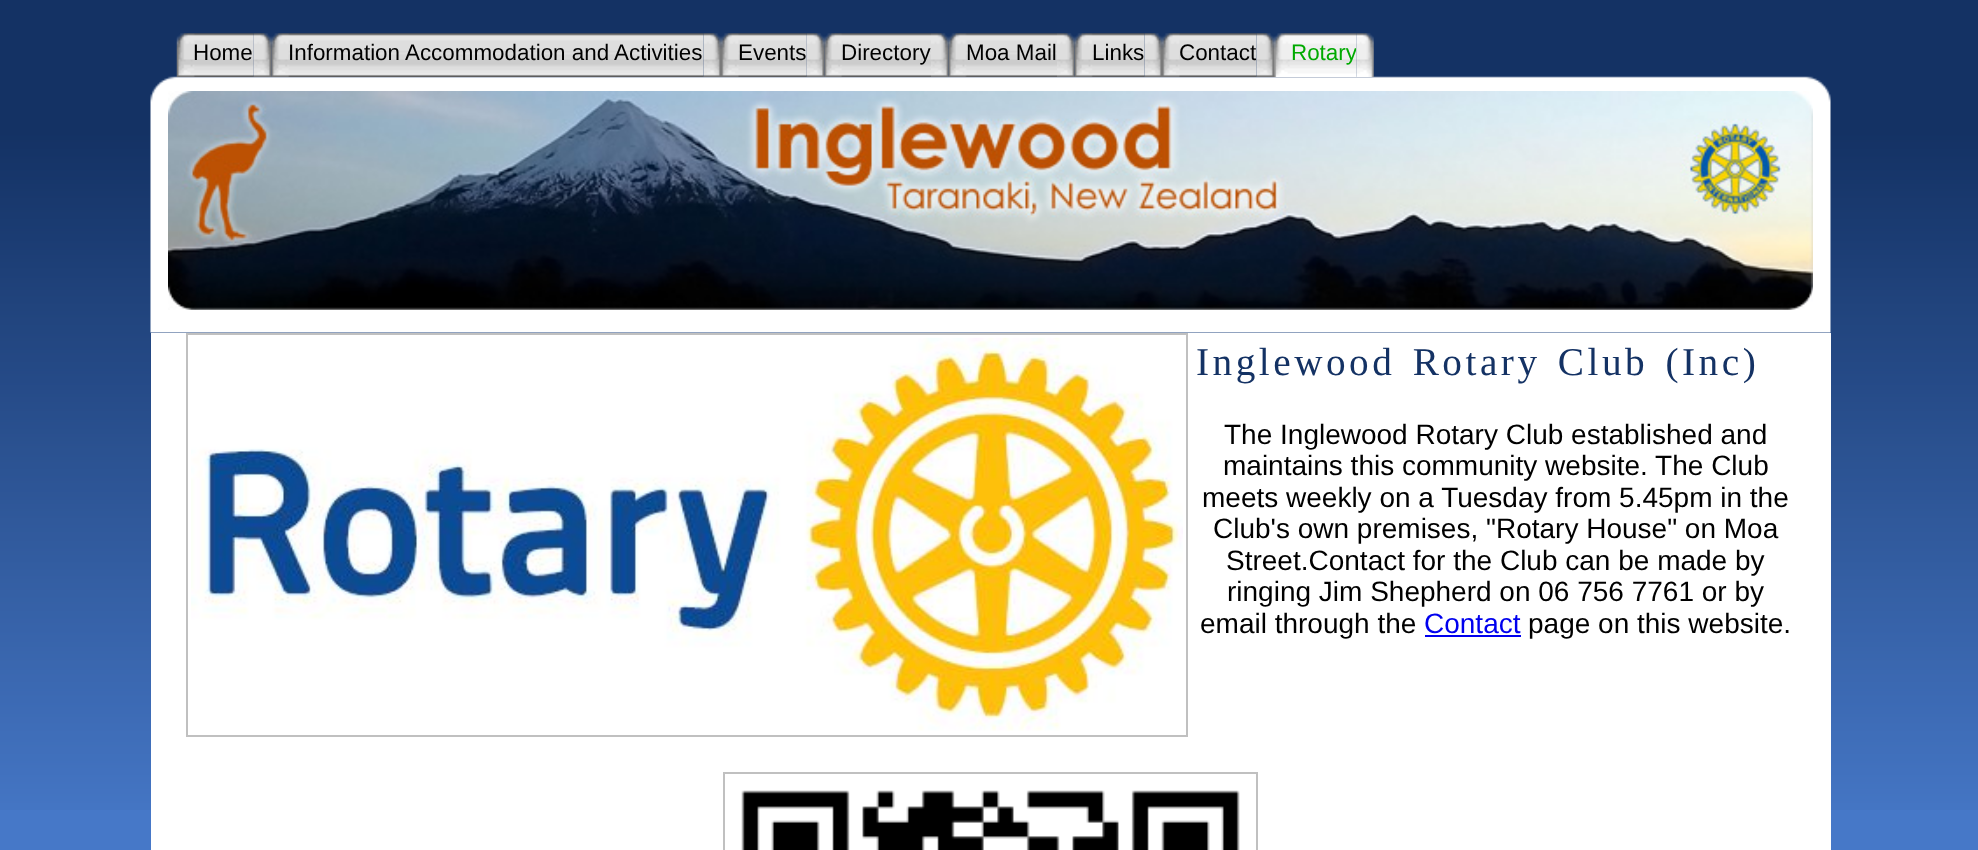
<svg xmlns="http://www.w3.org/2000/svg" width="1978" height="850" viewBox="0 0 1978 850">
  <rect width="100%" height="100%" fill="#4678c8"/>
  <image x="0" y="0" width="1978" height="810" href="img1.png"/>
  <image x="150" y="76" width="1681" height="257" href="img15.png"/>
  <image x="176" y="33" width="78" height="44" href="img2.png"/>
  <text x="193" y="60" font-family="Liberation Sans" font-size="22.4" fill="#000000">Home</text>
  <image x="253" y="33" width="19" height="44" href="img3.png"/>
  <image x="271" y="33" width="433" height="44" href="img4.png"/>
  <text x="288" y="60" font-family="Liberation Sans" font-size="22.4" fill="#000000">Information Accommodation and Activities</text>
  <image x="703" y="33" width="18" height="44" href="img5.png"/>
  <image x="721" y="33" width="86" height="44" href="img6.png"/>
  <text x="738" y="60" font-family="Liberation Sans" font-size="22.4" fill="#000000">Events</text>
  <image x="806" y="33" width="19" height="44" href="img3.png"/>
  <image x="824" y="33" width="107" height="44" href="img7.png"/>
  <text x="841" y="60" font-family="Liberation Sans" font-size="22.4" fill="#000000">Directory</text>
  <image x="931" y="33" width="18" height="44" href="img8.png"/>
  <image x="948" y="33" width="109" height="44" href="img9.png"/>
  <text x="966" y="60" font-family="Liberation Sans" font-size="22.4" fill="#000000">Moa Mail</text>
  <image x="1057" y="33" width="18" height="44" href="img10.png"/>
  <image x="1074" y="33" width="71" height="44" href="img11.png"/>
  <text x="1092" y="60" font-family="Liberation Sans" font-size="22.4" fill="#000000">Links</text>
  <image x="1144" y="33" width="18" height="44" href="img5.png"/>
  <image x="1162" y="33" width="95" height="44" href="img12.png"/>
  <text x="1179" y="60" font-family="Liberation Sans" font-size="22.4" fill="#000000">Contact</text>
  <image x="1256" y="33" width="18" height="44" href="img5.png"/>
  <image x="1274" y="33" width="83" height="44" href="img13.png"/>
  <text x="1291" y="60" font-family="Liberation Sans" font-size="22.4" fill="#00aa00">Rotary</text>
  <image x="1356" y="33" width="18" height="44" href="img14.png"/>
  <image x="168" y="91" width="1645" height="219" href="img16.png"/>
  <rect x="151" y="333" width="1680" height="517" fill="#ffffff"/>
  <rect x="187" y="334" width="1000" height="402" fill="none" stroke="#c0c0c0" stroke-width="2"/>
  <image x="191" y="337" width="992" height="394" href="img17.png"/>
  <text x="1196" y="375" word-spacing="4" font-family="Liberation Serif" font-size="39.25" letter-spacing="3.5" fill="#143264">Inglewood Rotary Club (Inc)</text>
  <text x="1224" y="444" font-family="Liberation Sans" font-size="28" fill="#000000">The Inglewood Rotary Club established and</text>
  <text x="1223" y="475" font-family="Liberation Sans" font-size="28" fill="#000000">maintains this community website. The Club</text>
  <text x="1202" y="507" font-family="Liberation Sans" font-size="28" fill="#000000">meets weekly on a Tuesday from 5.45pm in the</text>
  <text x="1213" y="538" font-family="Liberation Sans" font-size="28" fill="#000000">Club's own premises, "Rotary House" on Moa</text>
  <text x="1226" y="570" font-family="Liberation Sans" font-size="28" fill="#000000">Street.Contact for the Club can be made by</text>
  <text x="1227" y="601" font-family="Liberation Sans" font-size="28" fill="#000000">ringing Jim Shepherd on 06 756 7761 or by</text>
  <text x="1200" y="633" font-family="Liberation Sans" font-size="28" fill="#000000">email through the</text>
  <text x="1424" y="633" font-family="Liberation Sans" font-size="28" fill="#0000ee">Contact</text>
  <rect x="1425" y="635" width="96" height="2" fill="#0000ee"/>
  <text x="1528" y="633" font-family="Liberation Sans" font-size="28" fill="#000000">page on this website.</text>
  <rect x="724" y="773" width="533" height="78" fill="none" stroke="#c0c0c0" stroke-width="2"/>
  <image x="741" y="790" width="499" height="60" href="img18.png"/>
</svg>
